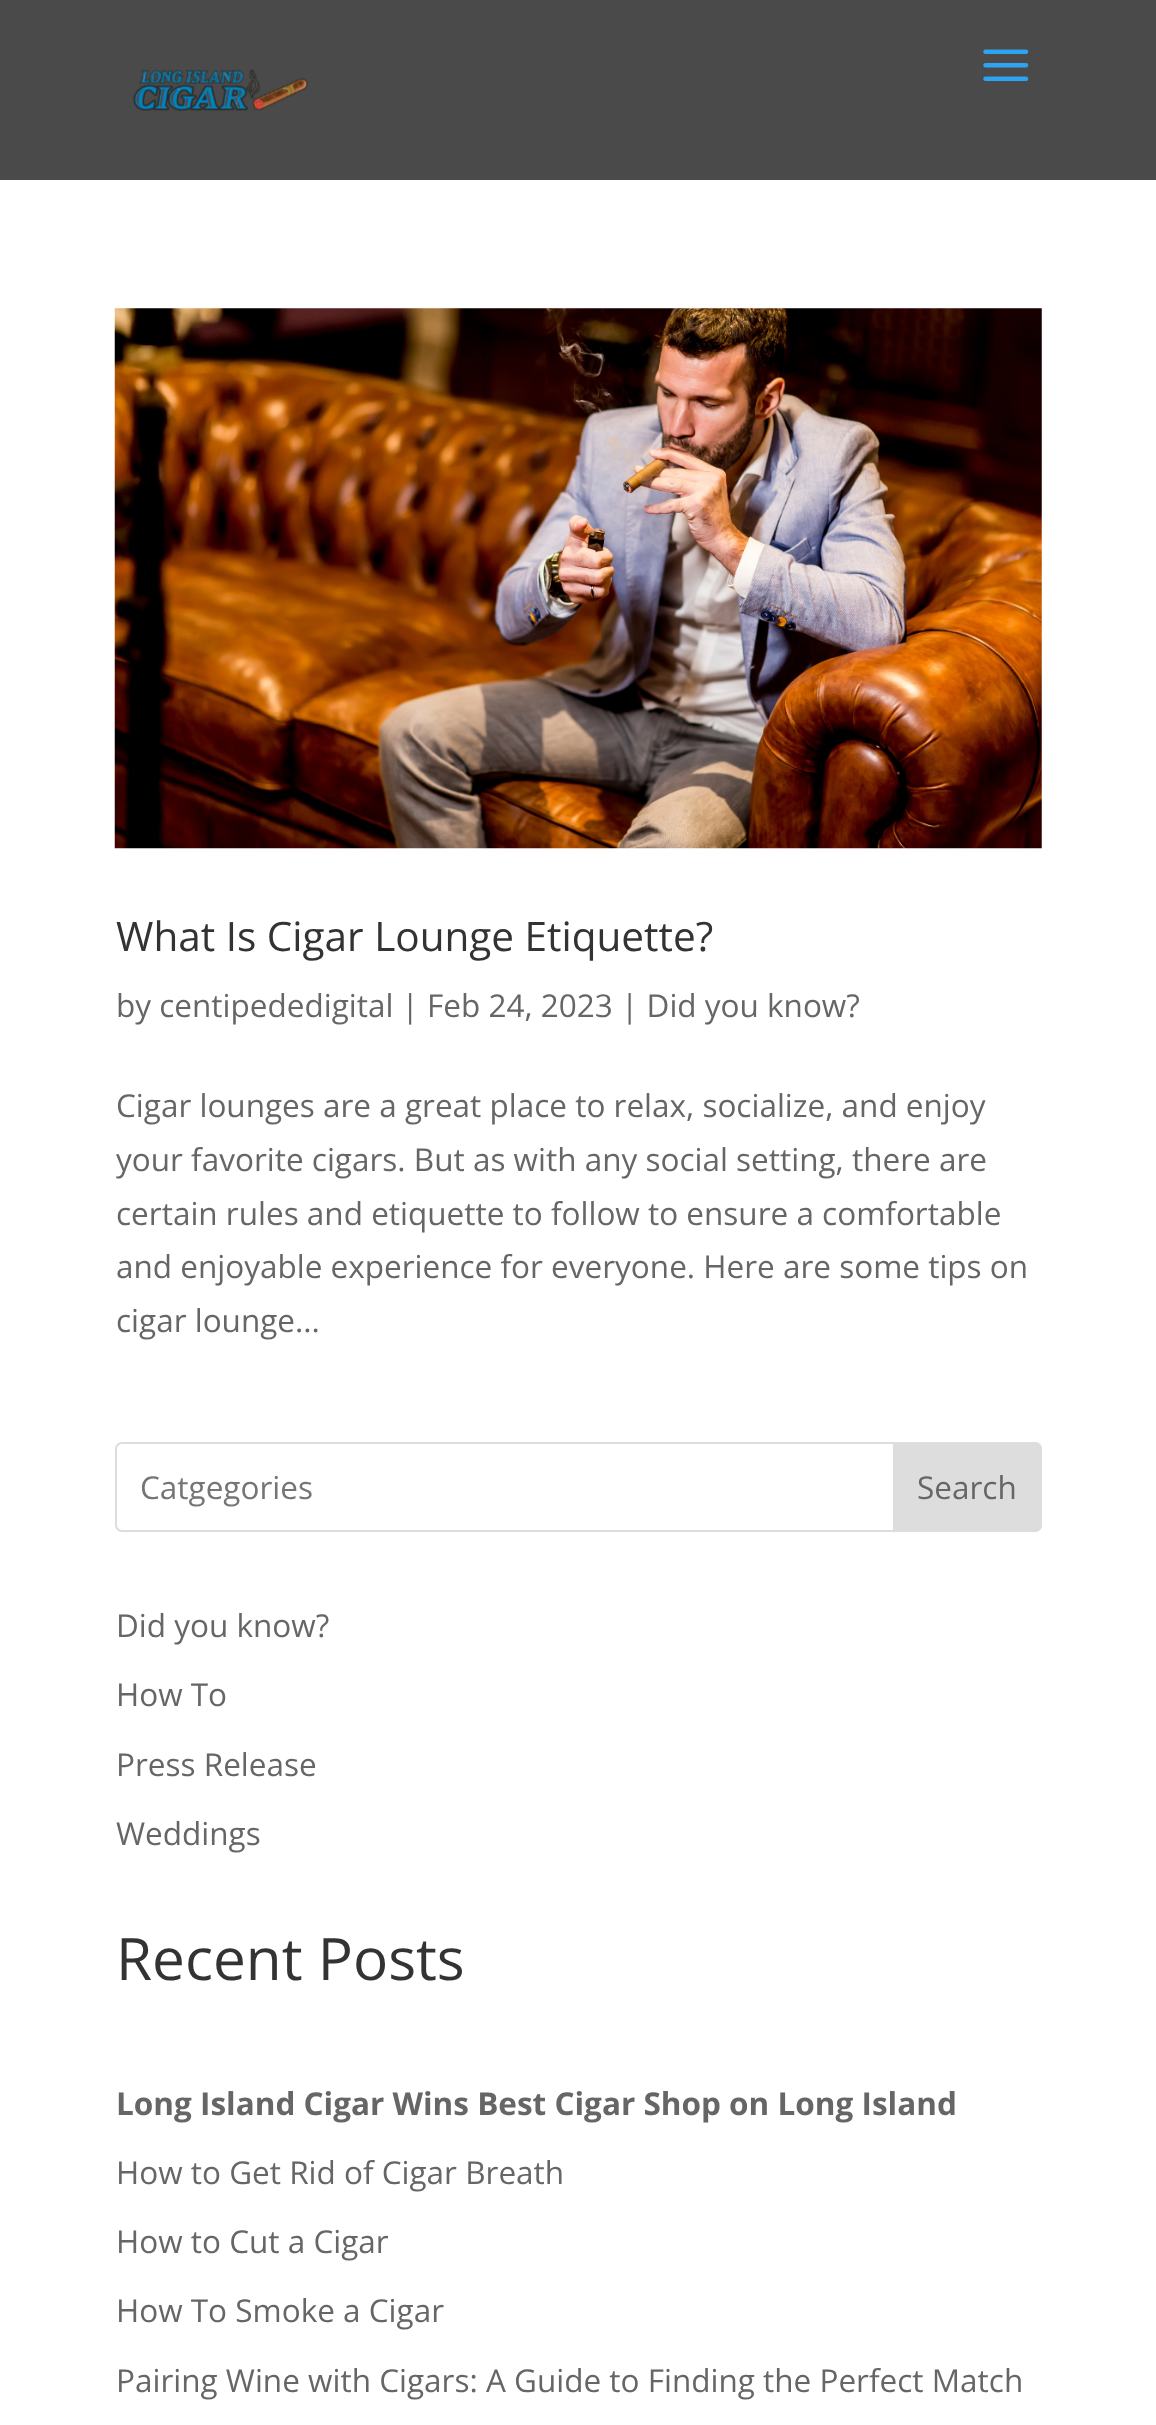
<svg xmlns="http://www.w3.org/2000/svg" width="1156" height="2425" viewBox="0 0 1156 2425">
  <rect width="100%" height="100%" fill="#ffffff"/>
  <rect x="0" y="0" width="1156" height="180" fill="#4a4a4a"/>
  <image x="983" y="49" width="46" height="32" href="img1.png"/>
  <image x="133" y="69" width="175" height="42" href="img2.png"/>
  <image x="114" y="308" width="928" height="541" href="img3.png"/>
  <text x="116" y="951" font-family="Open Sans" font-size="40.5" fill="#333333">What Is Cigar Lounge Etiquette?</text>
  <text x="116" y="1017" font-family="Open Sans" font-size="31.5" fill="#666666">by centipededigital | Feb 24, 2023 | Did you know?</text>
  <text x="116" y="1117" font-family="Open Sans" font-size="31.5" fill="#666666">Cigar lounges are a great place to relax, socialize, and enjoy</text>
  <text x="116" y="1171" font-family="Open Sans" font-size="31.5" fill="#666666">your favorite cigars. But as with any social setting, there are</text>
  <text x="116" y="1225" font-family="Open Sans" font-size="31.5" fill="#666666">certain rules and etiquette to follow to ensure a comfortable</text>
  <text x="116" y="1278" font-family="Open Sans" font-size="31.5" fill="#666666">and enjoyable experience for everyone. Here are some tips on</text>
  <text x="116" y="1332" font-family="Open Sans" font-size="31.5" fill="#666666">cigar lounge...</text>
  <rect x="116" y="1443" width="925" height="88" rx="6" fill="none" stroke="#dddddd" stroke-width="2"/>
  <text x="140" y="1499" font-family="Open Sans" font-size="31.5" fill="#757575">Catgegories</text>
  <path d="M894 1443H1035C1038.5 1443 1041 1445.5 1041 1449V1525C1041 1528.5 1038.5 1531 1035 1531H894Z" fill="#dddddd" stroke="#dddddd" stroke-width="2"/>
  <text x="917" y="1499" font-family="Open Sans" font-size="31.5" fill="#666666">Search</text>
  <text x="116" y="1637" font-family="Open Sans" font-size="31.5" fill="#666666">Did you know?</text>
  <text x="116" y="1706" font-family="Open Sans" font-size="31.5" fill="#666666">How To</text>
  <text x="116" y="1776" font-family="Open Sans" font-size="31.5" fill="#666666">Press Release</text>
  <text x="116" y="1845" font-family="Open Sans" font-size="31.5" fill="#666666">Weddings</text>
  <text x="116" y="1980" font-family="Open Sans" font-size="58.5" fill="#333333">Recent Posts</text>
  <text x="116" y="2115" font-family="Open Sans" font-size="31.5" font-weight="bold" fill="#666666">Long Island Cigar Wins Best Cigar Shop on Long Island</text>
  <text x="116" y="2184" font-family="Open Sans" font-size="31.5" fill="#666666">How to Get Rid of Cigar Breath</text>
  <text x="116" y="2253" font-family="Open Sans" font-size="31.5" fill="#666666">How to Cut a Cigar</text>
  <text x="116" y="2322" font-family="Open Sans" font-size="31.5" fill="#666666">How To Smoke a Cigar</text>
  <text x="116" y="2392" font-family="Open Sans" font-size="31.5" fill="#666666">Pairing Wine with Cigars: A Guide to Finding the Perfect Match</text>
</svg>
